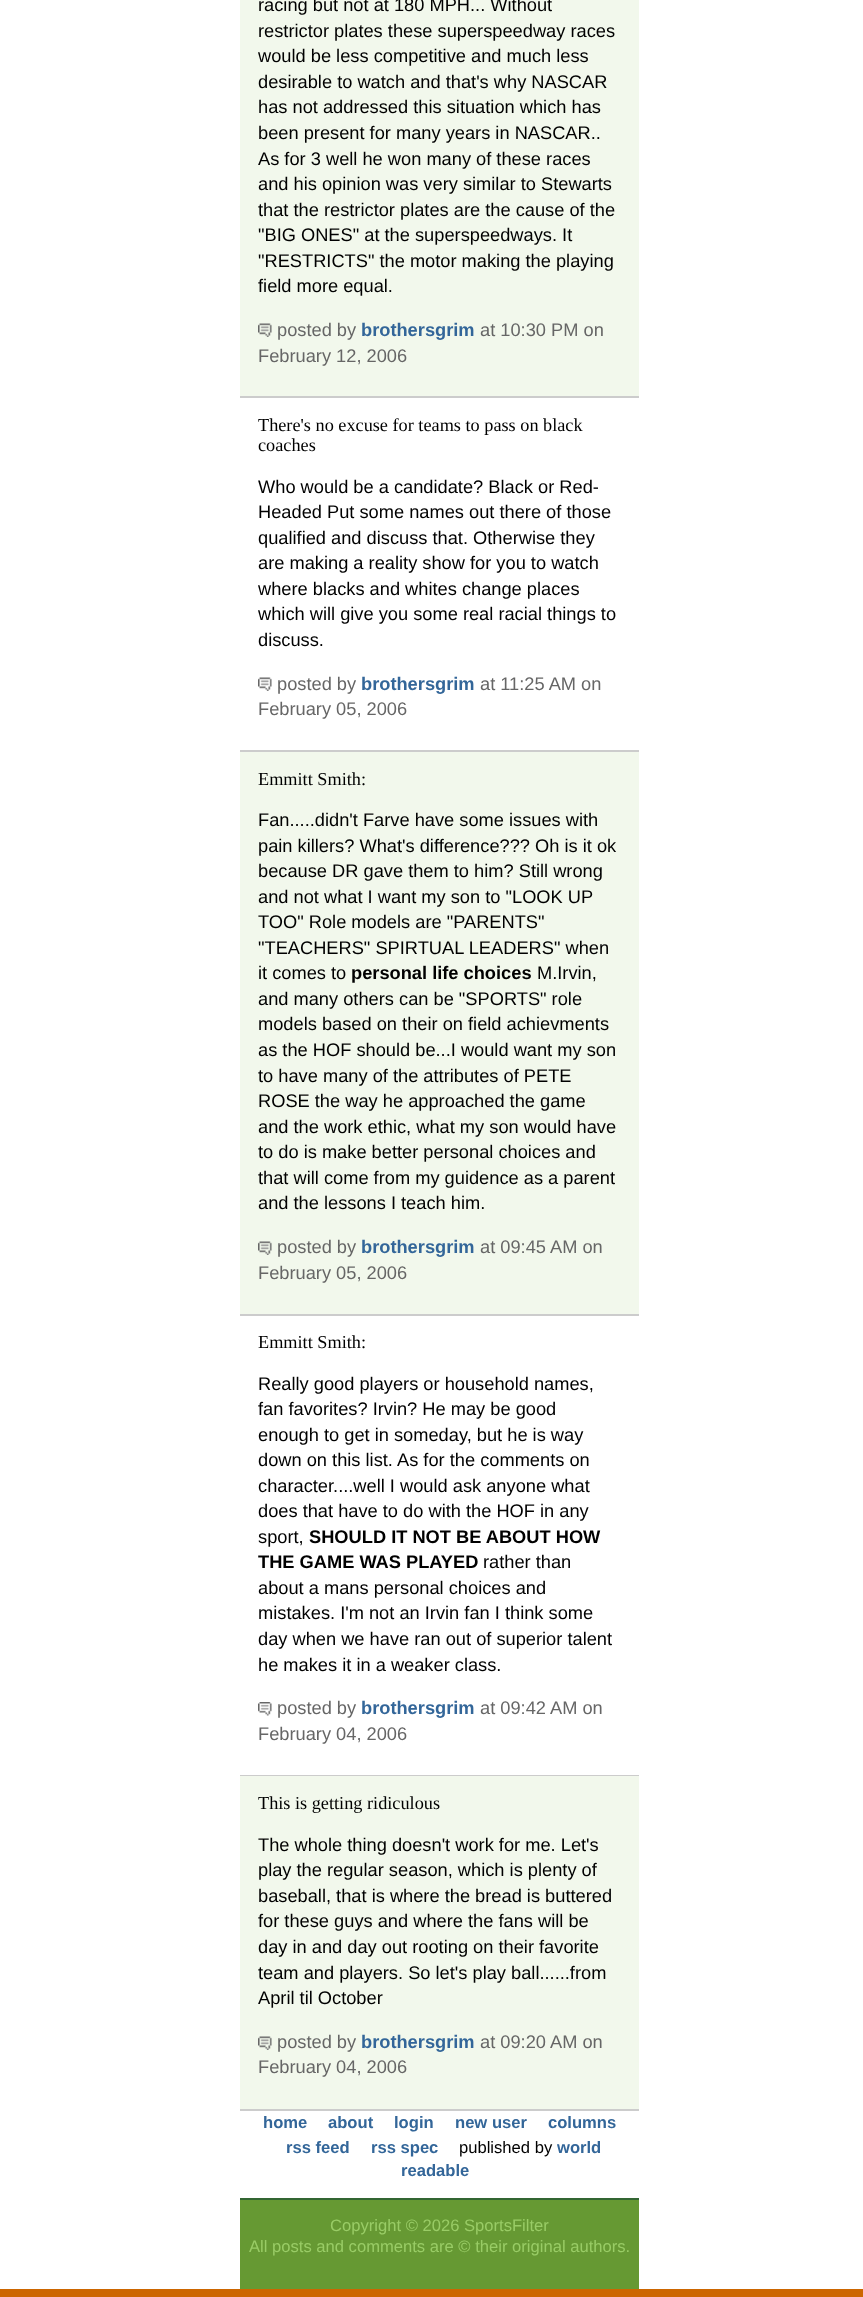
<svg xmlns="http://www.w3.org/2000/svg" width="863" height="2297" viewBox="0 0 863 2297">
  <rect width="100%" height="100%" fill="#ffffff"/>
  <rect x="0" y="2289" width="863" height="8" fill="#cc6600"/>
  <rect x="240" y="0" width="399" height="396" fill="#f2f8ec"/>
  <rect x="240" y="396" width="399" height="2" fill="#cccccc"/>
  <text x="258" y="11" font-family="Liberation Sans" font-size="18.25" fill="#000000">racing but not at 180 MPH... Without</text>
  <text x="258" y="37" font-family="Liberation Sans" font-size="18.25" fill="#000000">restrictor plates these superspeedway races</text>
  <text x="258" y="62" font-family="Liberation Sans" font-size="18.25" fill="#000000">would be less competitive and much less</text>
  <text x="258" y="88" font-family="Liberation Sans" font-size="18.25" fill="#000000">desirable to watch and that's why NASCAR</text>
  <text x="258" y="113" font-family="Liberation Sans" font-size="18.25" fill="#000000">has not addressed this situation which has</text>
  <text x="258" y="139" font-family="Liberation Sans" font-size="18.25" fill="#000000">been present for many years in NASCAR..</text>
  <text x="258" y="165" font-family="Liberation Sans" font-size="18.25" fill="#000000">As for 3 well he won many of these races</text>
  <text x="258" y="190" font-family="Liberation Sans" font-size="18.25" fill="#000000">and his opinion was very similar to Stewarts</text>
  <text x="258" y="216" font-family="Liberation Sans" font-size="18.25" fill="#000000">that the restrictor plates are the cause of the</text>
  <text x="258" y="241" font-family="Liberation Sans" font-size="18.25" fill="#000000">"BIG ONES" at the superspeedways. It</text>
  <text x="258" y="267" font-family="Liberation Sans" font-size="18.25" fill="#000000">"RESTRICTS" the motor making the playing</text>
  <text x="258" y="292" font-family="Liberation Sans" font-size="18.25" fill="#000000">field more equal.</text>
  <image x="258" y="323" width="14" height="14" href="img1.png"/>
  <text x="277" y="336" font-family="Liberation Sans" font-size="18.25" fill="#666666">posted by</text>
  <text x="361" y="336" font-family="Liberation Sans" font-size="18.25" font-weight="bold" fill="#336699">brothersgrim</text>
  <text x="480" y="336" font-family="Liberation Sans" font-size="18.25" fill="#666666">at 10:30 PM on</text>
  <text x="258" y="362" font-family="Liberation Sans" font-size="18.25" fill="#666666">February 12, 2006</text>
  <rect x="240" y="750" width="399" height="2" fill="#cccccc"/>
  <text x="258" y="431" font-family="Liberation Serif" font-size="18.25" fill="#000000">There's no excuse for teams to pass on black</text>
  <text x="258" y="451" font-family="Liberation Serif" font-size="18.25" fill="#000000">coaches</text>
  <text x="258" y="493" font-family="Liberation Sans" font-size="18.25" fill="#000000">Who would be a candidate? Black or Red-</text>
  <text x="258" y="518" font-family="Liberation Sans" font-size="18.25" fill="#000000">Headed Put some names out there of those</text>
  <text x="258" y="544" font-family="Liberation Sans" font-size="18.25" fill="#000000">qualified and discuss that. Otherwise they</text>
  <text x="258" y="569" font-family="Liberation Sans" font-size="18.25" fill="#000000">are making a reality show for you to watch</text>
  <text x="258" y="595" font-family="Liberation Sans" font-size="18.25" fill="#000000">where blacks and whites change places</text>
  <text x="258" y="620" font-family="Liberation Sans" font-size="18.25" fill="#000000">which will give you some real racial things to</text>
  <text x="258" y="646" font-family="Liberation Sans" font-size="18.25" fill="#000000">discuss.</text>
  <image x="258" y="677" width="14" height="14" href="img2.png"/>
  <text x="277" y="690" font-family="Liberation Sans" font-size="18.25" fill="#666666">posted by</text>
  <text x="361" y="690" font-family="Liberation Sans" font-size="18.25" font-weight="bold" fill="#336699">brothersgrim</text>
  <text x="480" y="690" font-family="Liberation Sans" font-size="18.25" fill="#666666">at 11:25 AM on</text>
  <text x="258" y="715" font-family="Liberation Sans" font-size="18.25" fill="#666666">February 05, 2006</text>
  <rect x="240" y="752" width="399" height="562" fill="#f2f8ec"/>
  <rect x="240" y="1314" width="399" height="2" fill="#cccccc"/>
  <text x="258" y="785" font-family="Liberation Serif" font-size="18.25" fill="#000000">Emmitt Smith:</text>
  <text x="258" y="826" font-family="Liberation Sans" font-size="18.25" fill="#000000">Fan.....didn't Farve have some issues with</text>
  <text x="258" y="852" font-family="Liberation Sans" font-size="18.25" fill="#000000">pain killers? What's difference??? Oh is it ok</text>
  <text x="258" y="877" font-family="Liberation Sans" font-size="18.25" fill="#000000">because DR gave them to him? Still wrong</text>
  <text x="258" y="903" font-family="Liberation Sans" font-size="18.25" fill="#000000">and not what I want my son to "LOOK UP</text>
  <text x="258" y="928" font-family="Liberation Sans" font-size="18.25" fill="#000000">TOO" Role models are "PARENTS"</text>
  <text x="258" y="954" font-family="Liberation Sans" font-size="18.25" fill="#000000">"TEACHERS" SPIRTUAL LEADERS" when</text>
  <text x="258" y="979" font-family="Liberation Sans" font-size="18.25" fill="#000000">it comes to</text>
  <text x="351" y="979" font-family="Liberation Sans" font-size="18.25" font-weight="bold" fill="#000000">personal life choices</text>
  <text x="537" y="979" font-family="Liberation Sans" font-size="18.25" fill="#000000">M.Irvin,</text>
  <text x="258" y="1005" font-family="Liberation Sans" font-size="18.25" fill="#000000">and many others can be "SPORTS" role</text>
  <text x="258" y="1030" font-family="Liberation Sans" font-size="18.25" fill="#000000">models based on their on field achievments</text>
  <text x="258" y="1056" font-family="Liberation Sans" font-size="18.25" fill="#000000">as the HOF should be...I would want my son</text>
  <text x="258" y="1082" font-family="Liberation Sans" font-size="18.25" fill="#000000">to have many of the attributes of PETE</text>
  <text x="258" y="1107" font-family="Liberation Sans" font-size="18.25" fill="#000000">ROSE the way he approached the game</text>
  <text x="258" y="1133" font-family="Liberation Sans" font-size="18.25" fill="#000000">and the work ethic, what my son would have</text>
  <text x="258" y="1158" font-family="Liberation Sans" font-size="18.25" fill="#000000">to do is make better personal choices and</text>
  <text x="258" y="1184" font-family="Liberation Sans" font-size="18.25" fill="#000000">that will come from my guidence as a parent</text>
  <text x="258" y="1209" font-family="Liberation Sans" font-size="18.25" fill="#000000">and the lessons I teach him.</text>
  <image x="258" y="1241" width="14" height="14" href="img1.png"/>
  <text x="277" y="1253" font-family="Liberation Sans" font-size="18.25" fill="#666666">posted by</text>
  <text x="361" y="1253" font-family="Liberation Sans" font-size="18.25" font-weight="bold" fill="#336699">brothersgrim</text>
  <text x="480" y="1253" font-family="Liberation Sans" font-size="18.25" fill="#666666">at 09:45 AM on</text>
  <text x="258" y="1279" font-family="Liberation Sans" font-size="18.25" fill="#666666">February 05, 2006</text>
  <rect x="240" y="1775" width="399" height="1" fill="#cccccc"/>
  <text x="258" y="1348" font-family="Liberation Serif" font-size="18.25" fill="#000000">Emmitt Smith:</text>
  <text x="258" y="1390" font-family="Liberation Sans" font-size="18.25" fill="#000000">Really good players or household names,</text>
  <text x="258" y="1415" font-family="Liberation Sans" font-size="18.25" fill="#000000">fan favorites? Irvin? He may be good</text>
  <text x="258" y="1441" font-family="Liberation Sans" font-size="18.25" fill="#000000">enough to get in someday, but he is way</text>
  <text x="258" y="1466" font-family="Liberation Sans" font-size="18.25" fill="#000000">down on this list. As for the comments on</text>
  <text x="258" y="1492" font-family="Liberation Sans" font-size="18.25" fill="#000000">character....well I would ask anyone what</text>
  <text x="258" y="1517" font-family="Liberation Sans" font-size="18.25" fill="#000000">does that have to do with the HOF in any</text>
  <text x="258" y="1543" font-family="Liberation Sans" font-size="18.25" fill="#000000">sport,</text>
  <text x="309" y="1543" font-family="Liberation Sans" font-size="18.25" font-weight="bold" fill="#000000">SHOULD IT NOT BE ABOUT HOW</text>
  <text x="258" y="1568" font-family="Liberation Sans" font-size="18.25" font-weight="bold" fill="#000000">THE GAME WAS PLAYED</text>
  <text x="483" y="1568" font-family="Liberation Sans" font-size="18.25" fill="#000000">rather than</text>
  <text x="258" y="1594" font-family="Liberation Sans" font-size="18.25" fill="#000000">about a mans personal choices and</text>
  <text x="258" y="1619" font-family="Liberation Sans" font-size="18.25" fill="#000000">mistakes. I'm not an Irvin fan I think some</text>
  <text x="258" y="1645" font-family="Liberation Sans" font-size="18.25" fill="#000000">day when we have ran out of superior talent</text>
  <text x="258" y="1671" font-family="Liberation Sans" font-size="18.25" fill="#000000">he makes it in a weaker class.</text>
  <image x="258" y="1702" width="14" height="14" href="img3.png"/>
  <text x="277" y="1714" font-family="Liberation Sans" font-size="18.25" fill="#666666">posted by</text>
  <text x="361" y="1714" font-family="Liberation Sans" font-size="18.25" font-weight="bold" fill="#336699">brothersgrim</text>
  <text x="480" y="1714" font-family="Liberation Sans" font-size="18.25" fill="#666666">at 09:42 AM on</text>
  <text x="258" y="1740" font-family="Liberation Sans" font-size="18.25" fill="#666666">February 04, 2006</text>
  <rect x="240" y="1776" width="399" height="333" fill="#f2f8ec"/>
  <rect x="240" y="2109" width="399" height="2" fill="#cccccc"/>
  <text x="258" y="1809" font-family="Liberation Serif" font-size="18.25" fill="#000000">This is getting ridiculous</text>
  <text x="258" y="1851" font-family="Liberation Sans" font-size="18.25" fill="#000000">The whole thing doesn't work for me. Let's</text>
  <text x="258" y="1876" font-family="Liberation Sans" font-size="18.25" fill="#000000">play the regular season, which is plenty of</text>
  <text x="258" y="1902" font-family="Liberation Sans" font-size="18.25" fill="#000000">baseball, that is where the bread is buttered</text>
  <text x="258" y="1927" font-family="Liberation Sans" font-size="18.25" fill="#000000">for these guys and where the fans will be</text>
  <text x="258" y="1953" font-family="Liberation Sans" font-size="18.25" fill="#000000">day in and day out rooting on their favorite</text>
  <text x="258" y="1979" font-family="Liberation Sans" font-size="18.25" fill="#000000">team and players. So let's play ball......from</text>
  <text x="258" y="2004" font-family="Liberation Sans" font-size="18.25" fill="#000000">April til October</text>
  <image x="258" y="2036" width="14" height="14" href="img1.png"/>
  <text x="277" y="2048" font-family="Liberation Sans" font-size="18.25" fill="#666666">posted by</text>
  <text x="361" y="2048" font-family="Liberation Sans" font-size="18.25" font-weight="bold" fill="#336699">brothersgrim</text>
  <text x="480" y="2048" font-family="Liberation Sans" font-size="18.25" fill="#666666">at 09:20 AM on</text>
  <text x="258" y="2073" font-family="Liberation Sans" font-size="18.25" fill="#666666">February 04, 2006</text>
  <text x="263" y="2128" font-family="Liberation Sans" font-size="16.6" font-weight="bold" fill="#336699">home</text>
  <text x="328" y="2128" font-family="Liberation Sans" font-size="16.6" font-weight="bold" fill="#336699">about</text>
  <text x="394" y="2128" font-family="Liberation Sans" font-size="16.6" font-weight="bold" fill="#336699">login</text>
  <text x="455" y="2128" font-family="Liberation Sans" font-size="16.6" font-weight="bold" fill="#336699">new user</text>
  <text x="548" y="2128" font-family="Liberation Sans" font-size="16.6" font-weight="bold" fill="#336699">columns</text>
  <text x="286" y="2153" font-family="Liberation Sans" font-size="16.6" font-weight="bold" fill="#336699">rss feed</text>
  <text x="371" y="2153" font-family="Liberation Sans" font-size="16.6" font-weight="bold" fill="#336699">rss spec</text>
  <text x="459" y="2153" font-family="Liberation Sans" font-size="16.6" fill="#000000">published by</text>
  <text x="557" y="2153" font-family="Liberation Sans" font-size="16.6" font-weight="bold" fill="#336699">world</text>
  <text x="401" y="2176" font-family="Liberation Sans" font-size="16.6" font-weight="bold" fill="#336699">readable</text>
  <rect x="240" y="2200" width="399" height="89" fill="#669933"/>
  <rect x="240" y="2198" width="399" height="2" fill="#336633"/>
  <text x="330" y="2231" font-family="Liberation Sans" font-size="16.6" fill="#99cc66">Copyright © 2026 SportsFilter</text>
  <text x="249" y="2252" font-family="Liberation Sans" font-size="16.6" fill="#99cc66">All posts and comments are © their original authors.</text>
</svg>
